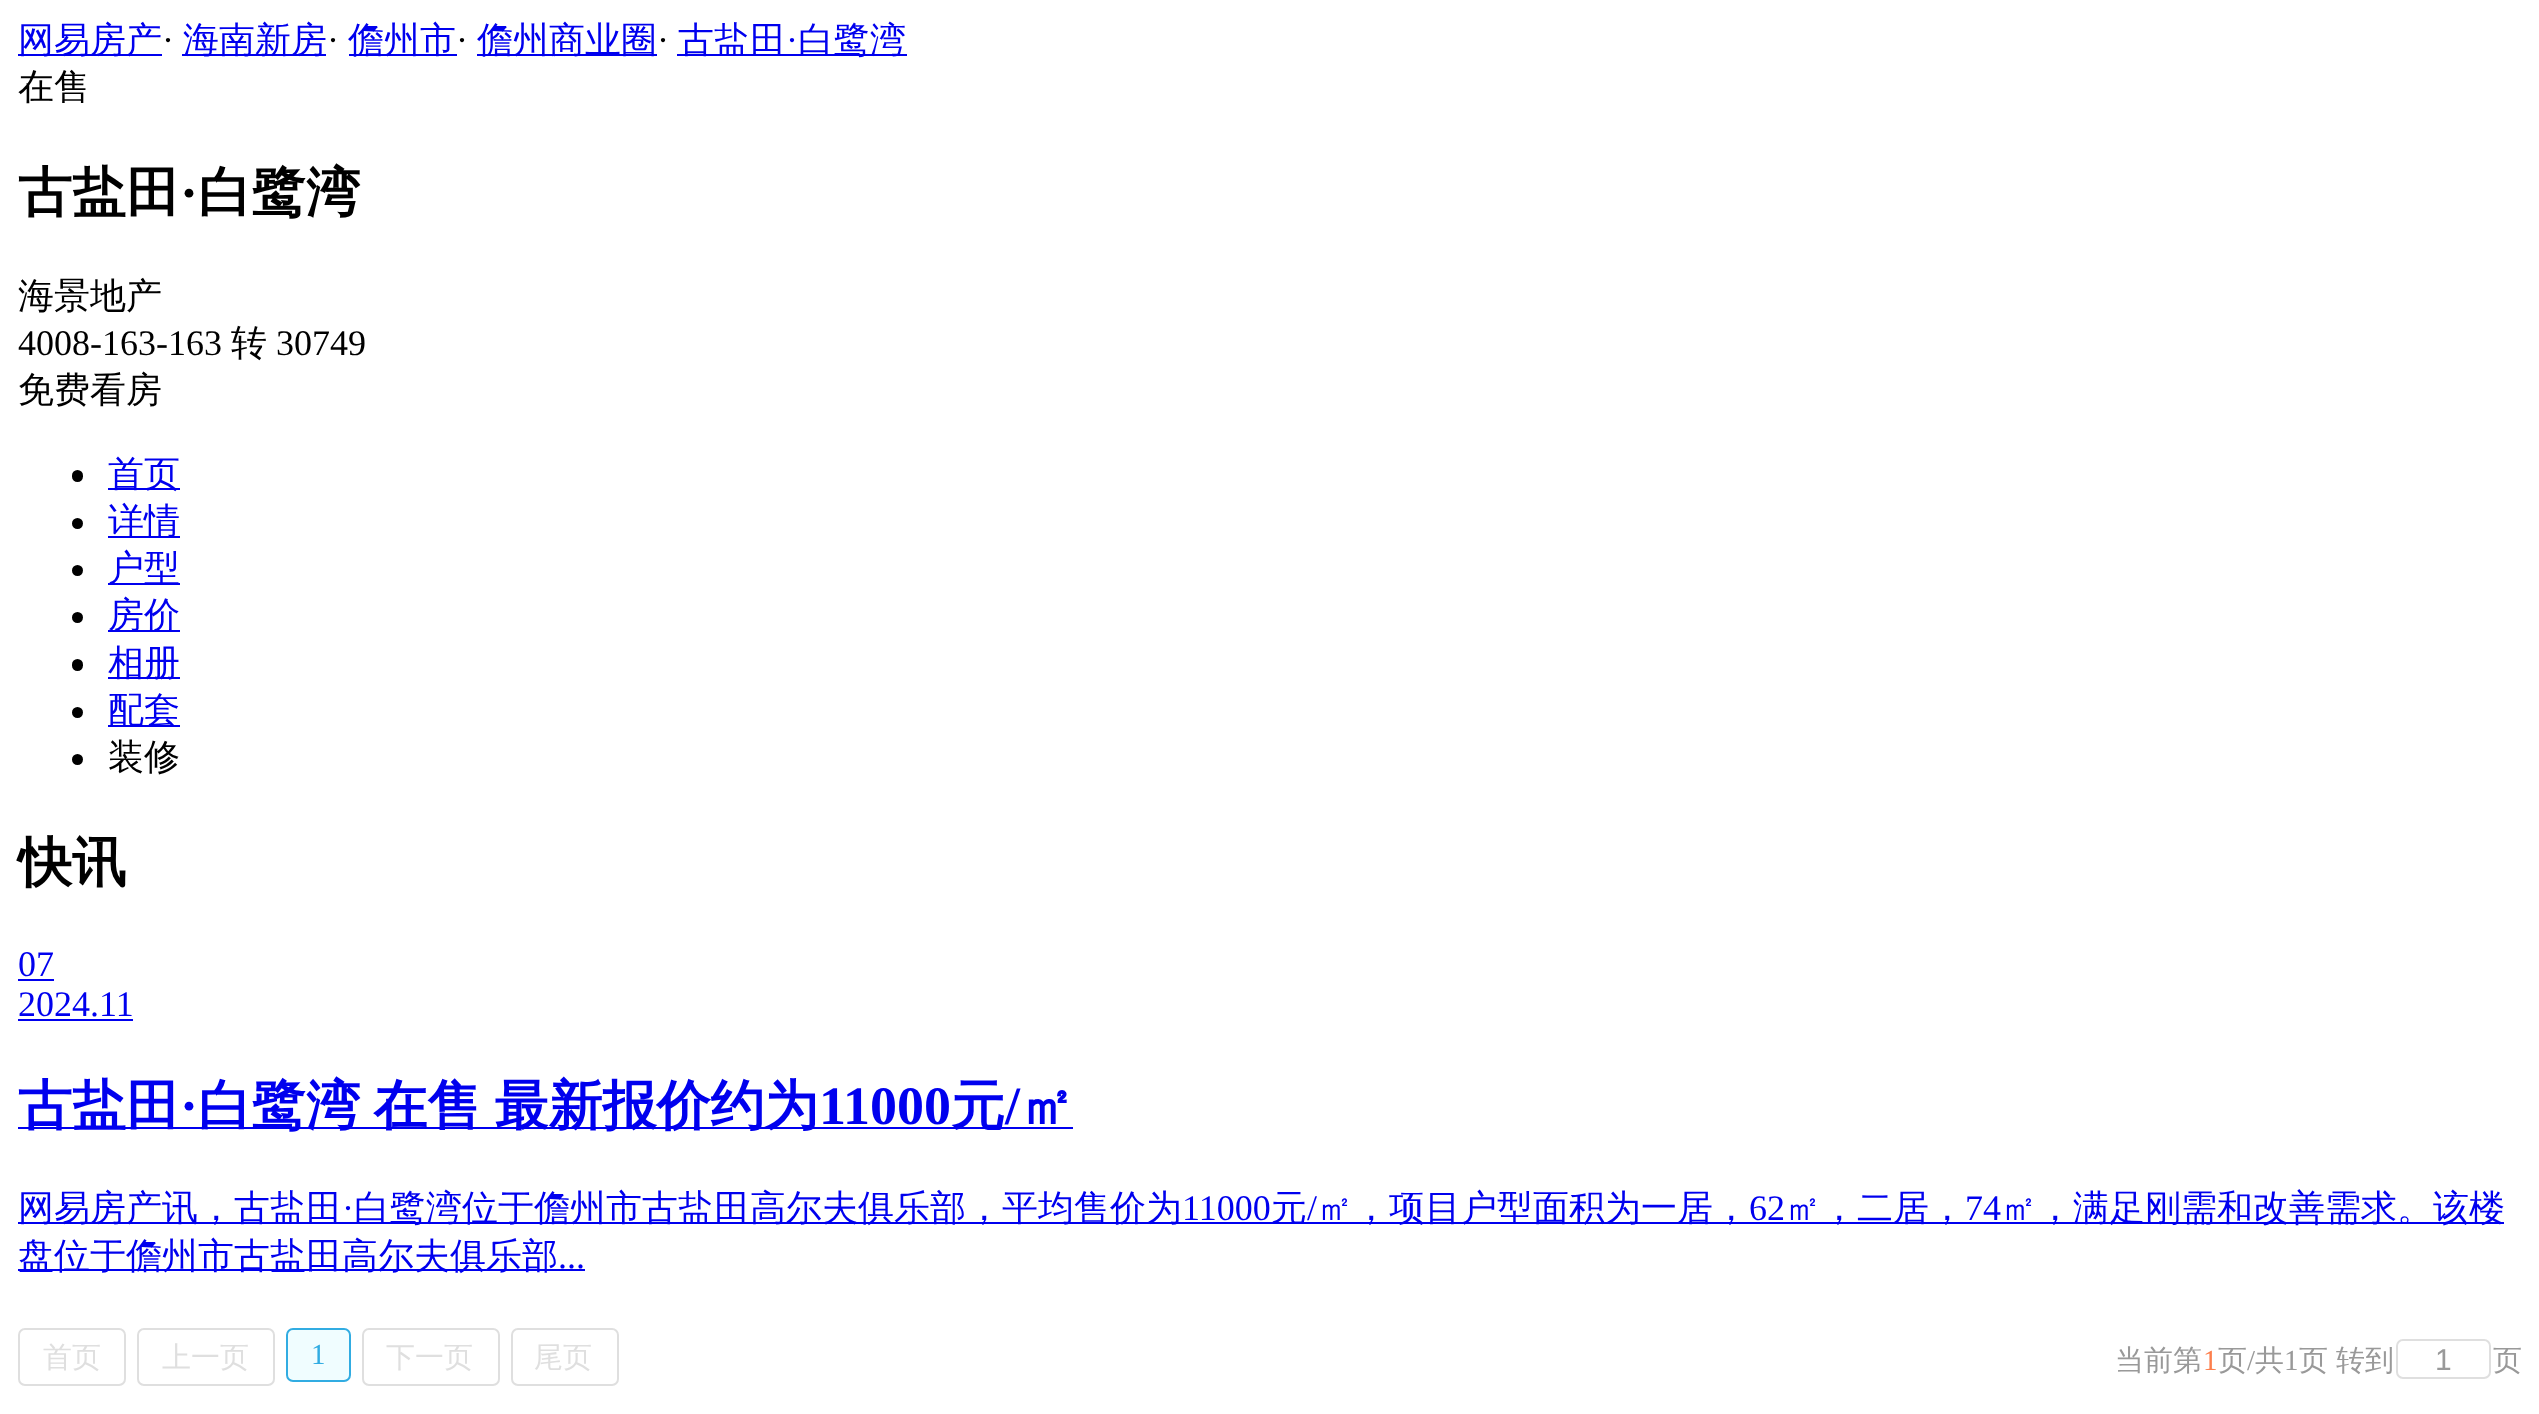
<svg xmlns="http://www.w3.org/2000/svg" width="2539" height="1414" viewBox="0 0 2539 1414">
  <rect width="100%" height="100%" fill="#ffffff"/>
  <rect x="18" y="54" width="144" height="2" fill="#0000ee"/>
  <text x="18" y="52" font-family="WenQuanYi Zen Hei" font-size="36" font-weight="500" fill="#0000ee">网易房产</text>
  <text x="162" y="52" font-family="Liberation Serif" font-size="36" fill="#000000">·</text>
  <rect x="182" y="54" width="144" height="2" fill="#0000ee"/>
  <text x="183" y="52" font-family="WenQuanYi Zen Hei" font-size="36" font-weight="500" fill="#0000ee">海南新房</text>
  <text x="327" y="52" font-family="Liberation Serif" font-size="36" fill="#000000">·</text>
  <rect x="349" y="54" width="108" height="2" fill="#0000ee"/>
  <text x="348" y="52" font-family="WenQuanYi Zen Hei" font-size="36" font-weight="500" fill="#0000ee">儋州市</text>
  <text x="456" y="52" font-family="Liberation Serif" font-size="36" fill="#000000">·</text>
  <rect x="477" y="54" width="180" height="2" fill="#0000ee"/>
  <text x="477" y="52" font-family="WenQuanYi Zen Hei" font-size="36" font-weight="500" fill="#0000ee">儋州商业圈</text>
  <text x="657" y="52" font-family="Liberation Serif" font-size="36" fill="#000000">·</text>
  <rect x="677" y="54" width="230" height="2" fill="#0000ee"/>
  <text x="678" y="52" font-family="WenQuanYi Zen Hei" font-size="36" font-weight="500" fill="#0000ee">古盐田</text>
  <text x="786" y="52" font-family="Liberation Serif" font-size="36" fill="#0000ee">·</text>
  <text x="798" y="52" font-family="WenQuanYi Zen Hei" font-size="36" font-weight="500" fill="#0000ee">白鹭湾</text>
  <text x="18" y="99" font-family="WenQuanYi Zen Hei" font-size="36" font-weight="500" fill="#000000">在售</text>
  <text x="18" y="211" font-family="WenQuanYi Zen Hei" font-size="54" font-weight="bold" fill="#000000">古盐田</text>
  <text x="180" y="211" font-family="Liberation Serif" font-size="54" font-weight="bold" fill="#000000">·</text>
  <text x="198" y="211" font-family="WenQuanYi Zen Hei" font-size="54" font-weight="bold" fill="#000000">白鹭湾</text>
  <text x="18" y="308" font-family="WenQuanYi Zen Hei" font-size="36" font-weight="500" fill="#000000">海景地产</text>
  <text x="18" y="355" font-family="Liberation Serif" font-size="36" fill="#000000">4008-163-163</text>
  <text x="231" y="355" font-family="WenQuanYi Zen Hei" font-size="36" font-weight="500" fill="#000000">转</text>
  <text x="276" y="355" font-family="Liberation Serif" font-size="36" fill="#000000">30749</text>
  <text x="18" y="402" font-family="WenQuanYi Zen Hei" font-size="36" font-weight="500" fill="#000000">免费看房</text>
  <rect x="72" y="470" width="11" height="12" rx="5.5" fill="#000000"/>
  <rect x="108" y="488" width="72" height="2" fill="#0000ee"/>
  <text x="108" y="486" font-family="WenQuanYi Zen Hei" font-size="36" font-weight="500" fill="#0000ee">首页</text>
  <circle cx="77.5" cy="523.5" r="5.5" fill="#000000"/>
  <rect x="108" y="536" width="72" height="2" fill="#0000ee"/>
  <text x="108" y="533" font-family="WenQuanYi Zen Hei" font-size="36" font-weight="500" fill="#0000ee">详情</text>
  <circle cx="77.5" cy="570.5" r="5.5" fill="#000000"/>
  <rect x="108" y="583" width="72" height="2" fill="#0000ee"/>
  <text x="108" y="580" font-family="WenQuanYi Zen Hei" font-size="36" font-weight="500" fill="#0000ee">户型</text>
  <circle cx="77.5" cy="617.5" r="5.5" fill="#000000"/>
  <rect x="108" y="630" width="72" height="2" fill="#0000ee"/>
  <text x="108" y="627" font-family="WenQuanYi Zen Hei" font-size="36" font-weight="500" fill="#0000ee">房价</text>
  <rect x="72" y="659" width="11" height="12" rx="5.5" fill="#000000"/>
  <rect x="108" y="677" width="72" height="2" fill="#0000ee"/>
  <text x="108" y="675" font-family="WenQuanYi Zen Hei" font-size="36" font-weight="500" fill="#0000ee">相册</text>
  <circle cx="77.5" cy="712.5" r="5.5" fill="#000000"/>
  <rect x="108" y="725" width="72" height="2" fill="#0000ee"/>
  <text x="108" y="722" font-family="WenQuanYi Zen Hei" font-size="36" font-weight="500" fill="#0000ee">配套</text>
  <circle cx="77.5" cy="759.5" r="5.5" fill="#000000"/>
  <text x="108" y="769" font-family="WenQuanYi Zen Hei" font-size="36" font-weight="500" fill="#000000">装修</text>
  <text x="18" y="881" font-family="WenQuanYi Zen Hei" font-size="54" font-weight="bold" fill="#000000">快讯</text>
  <text x="18" y="976" font-family="Liberation Serif" font-size="36" fill="#0000ee">07</text>
  <rect x="18" y="979" width="36" height="2" fill="#0000ee"/>
  <text x="18" y="1016" font-family="Liberation Serif" font-size="36" fill="#0000ee">2024.11</text>
  <rect x="18" y="1019" width="115" height="2" fill="#0000ee"/>
  <rect x="18" y="1127" width="1055" height="2" fill="#0000ee"/>
  <text x="18" y="1124" font-family="WenQuanYi Zen Hei" font-size="54" font-weight="bold" fill="#0000ee">古盐田</text>
  <text x="180" y="1124" font-family="Liberation Serif" font-size="54" font-weight="bold" fill="#0000ee">·</text>
  <text x="198" y="1124" word-spacing="-3" font-family="WenQuanYi Zen Hei" font-size="54" font-weight="bold" fill="#0000ee">白鹭湾 在售 最新报价约为</text>
  <text x="819" y="1124" font-family="Liberation Serif" font-size="54" font-weight="bold" fill="#0000ee">11000</text>
  <text x="951" y="1124" font-family="WenQuanYi Zen Hei" font-size="54" font-weight="bold" fill="#0000ee">元</text>
  <text x="1005" y="1124" font-family="Liberation Serif" font-size="54" font-weight="bold" fill="#0000ee">/</text>
  <text x="1020" y="1124" font-family="WenQuanYi Zen Hei" font-size="54" font-weight="bold" fill="#0000ee">㎡</text>
  <rect x="18" y="1222" width="2486" height="2" fill="#0000ee"/>
  <text x="18" y="1220" font-family="WenQuanYi Zen Hei" font-size="36" font-weight="500" fill="#0000ee">网易房产讯，古盐田</text>
  <text x="342" y="1220" font-family="Liberation Serif" font-size="36" fill="#0000ee">·</text>
  <text x="354" y="1220" font-family="WenQuanYi Zen Hei" font-size="36" font-weight="500" fill="#0000ee">白鹭湾位于儋州市古盐田高尔夫俱乐部，平均售价为</text>
  <text x="1182" y="1220" font-family="Liberation Serif" font-size="36" fill="#0000ee">11000</text>
  <text x="1271" y="1220" font-family="WenQuanYi Zen Hei" font-size="36" font-weight="500" fill="#0000ee">元</text>
  <text x="1307" y="1220" font-family="Liberation Serif" font-size="36" fill="#0000ee">/</text>
  <text x="1317" y="1220" font-family="WenQuanYi Zen Hei" font-size="36" font-weight="500" fill="#0000ee">㎡，项目户型面积为一居，</text>
  <text x="1749" y="1220" font-family="Liberation Serif" font-size="36" fill="#0000ee">62</text>
  <text x="1785" y="1220" font-family="WenQuanYi Zen Hei" font-size="36" font-weight="500" fill="#0000ee">㎡，二居，</text>
  <text x="1965" y="1220" font-family="Liberation Serif" font-size="36" fill="#0000ee">74</text>
  <text x="2001" y="1220" font-family="WenQuanYi Zen Hei" font-size="36" font-weight="500" fill="#0000ee">㎡，满足刚需和改善需求。该楼</text>
  <rect x="18" y="1269" width="567" height="2" fill="#0000ee"/>
  <text x="18" y="1268" font-family="WenQuanYi Zen Hei" font-size="36" font-weight="500" fill="#0000ee">盘位于儋州市古盐田高尔夫俱乐部</text>
  <text x="558" y="1268" font-family="Liberation Serif" font-size="36" fill="#0000ee">...</text>
  <rect x="19" y="1329" width="106" height="56" rx="6" fill="none" stroke="#dfdfdf" stroke-width="2"/>
  <text x="43" y="1367" font-family="WenQuanYi Zen Hei" font-size="29" font-weight="500" fill="#dfdfdf">首页</text>
  <rect x="138" y="1329" width="136" height="56" rx="6" fill="none" stroke="#dfdfdf" stroke-width="2"/>
  <text x="162" y="1367" font-family="WenQuanYi Zen Hei" font-size="29" font-weight="500" fill="#dfdfdf">上一页</text>
  <rect x="287" y="1329" width="63" height="52" rx="6" fill="#f0fdff" stroke="#31ace2" stroke-width="2"/>
  <text x="311" y="1364" font-family="Liberation Serif" font-size="29" fill="#31ace2">1</text>
  <rect x="363" y="1329" width="136" height="56" rx="6" fill="none" stroke="#dfdfdf" stroke-width="2"/>
  <text x="386" y="1367" font-family="WenQuanYi Zen Hei" font-size="29" font-weight="500" fill="#dfdfdf">下一页</text>
  <rect x="512" y="1329" width="106" height="56" rx="6" fill="none" stroke="#dfdfdf" stroke-width="2"/>
  <text x="534" y="1367" font-family="WenQuanYi Zen Hei" font-size="29" font-weight="500" fill="#dfdfdf">尾页</text>
  <text x="2115" y="1370" font-family="WenQuanYi Zen Hei" font-size="29" font-weight="500" fill="#999999">当前第</text>
  <text x="2203" y="1370" font-family="Liberation Serif" font-size="29" fill="#fd7f4d">1</text>
  <text x="2218" y="1370" font-family="WenQuanYi Zen Hei" font-size="29" font-weight="500" fill="#999999">页</text>
  <text x="2247" y="1370" font-family="Liberation Serif" font-size="29" fill="#999999">/</text>
  <text x="2255" y="1370" font-family="WenQuanYi Zen Hei" font-size="29" font-weight="500" fill="#999999">共</text>
  <text x="2284" y="1370" font-family="Liberation Serif" font-size="29" fill="#999999">1</text>
  <text x="2299" y="1370" font-family="WenQuanYi Zen Hei" font-size="29" font-weight="500" fill="#999999">页</text>
  <text x="2336" y="1370" font-family="WenQuanYi Zen Hei" font-size="29" font-weight="500" fill="#999999">转到</text>
  <rect x="2397" y="1340" width="93" height="38" rx="6" fill="none" stroke="#dfdfdf" stroke-width="2"/>
  <text x="2435" y="1370" font-family="Liberation Sans" font-size="30" fill="#999999">1</text>
  <text x="2493" y="1370" font-family="WenQuanYi Zen Hei" font-size="29" font-weight="500" fill="#999999">页</text>
</svg>
